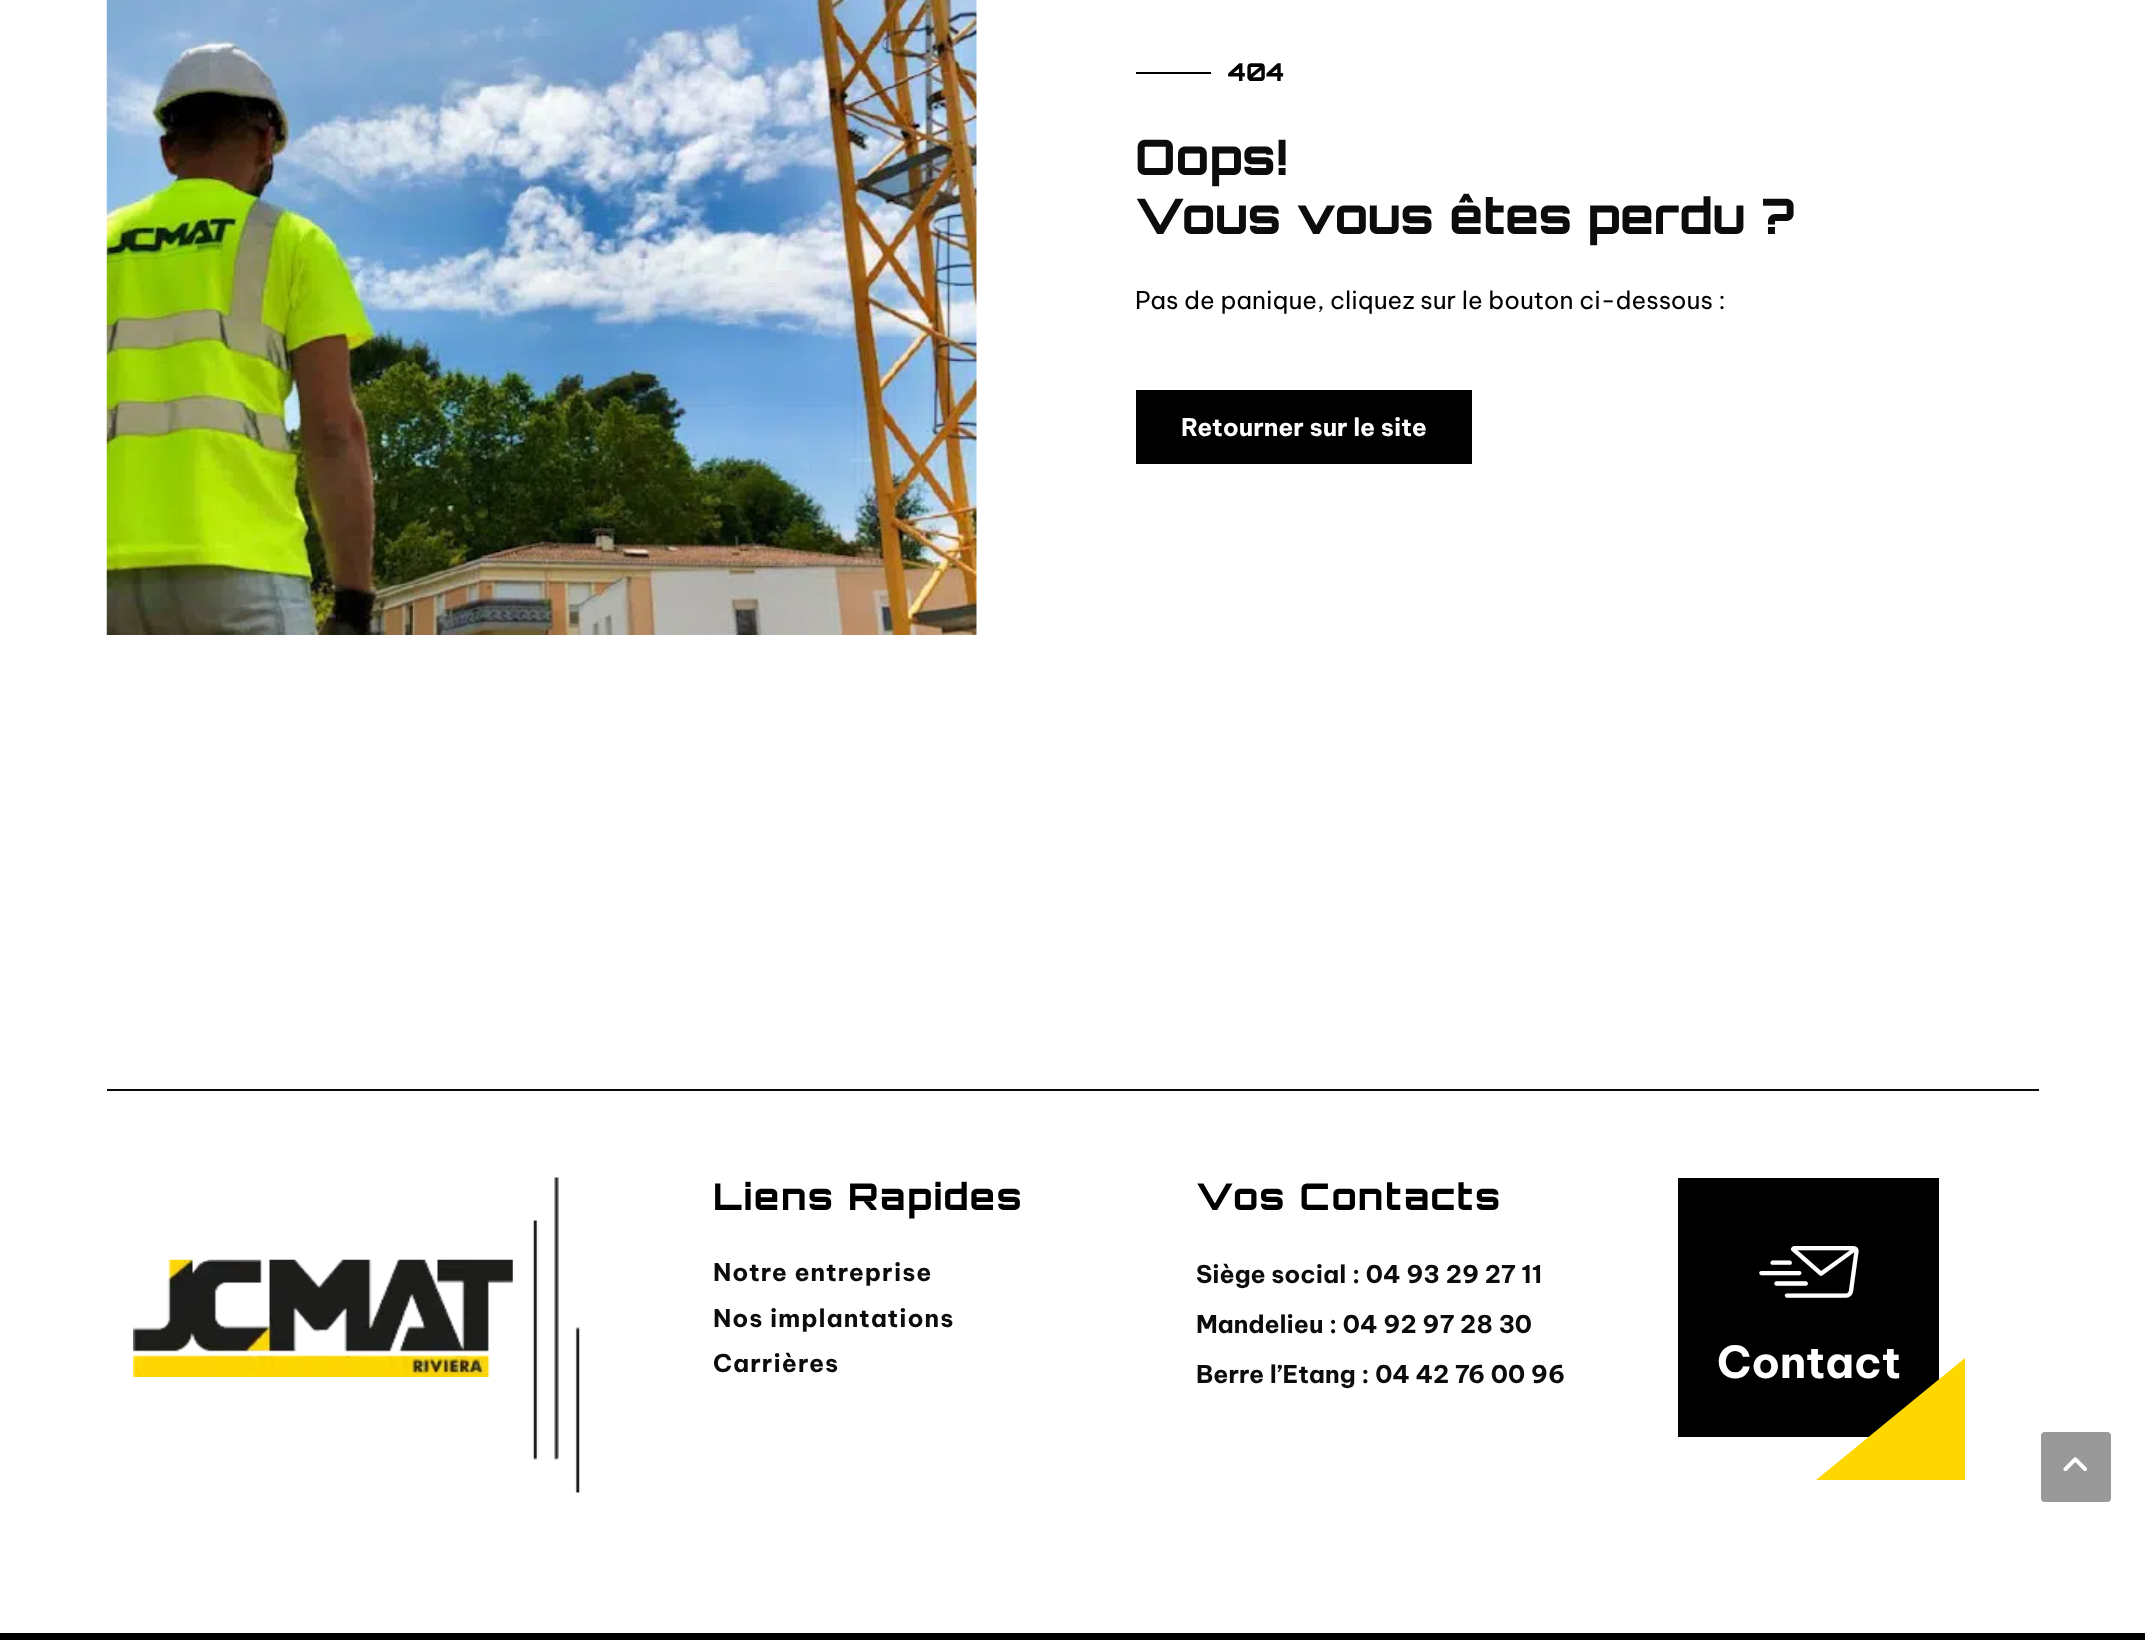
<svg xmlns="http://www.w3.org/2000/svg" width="2145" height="1640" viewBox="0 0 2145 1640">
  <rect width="100%" height="100%" fill="#ffffff"/>
  <image x="106" y="0" width="871" height="635" href="img1.png"/>
  <rect x="1136" y="72" width="75" height="2" fill="#000000"/>
  <text x="1228" y="81" font-family="Orbitron" font-size="24.5" font-weight="800" fill="#000000">404</text>
  <text x="1135" y="175" font-family="Orbitron" font-size="49" font-weight="800" fill="#0c0c0c">Oops!</text>
  <text x="1135" y="234" font-family="Orbitron" font-size="49" font-weight="800" fill="#0c0c0c">Vous vous êtes perdu ?</text>
  <text x="1135" y="309" font-family="Be Vietnam Pro" font-size="24.5" fill="#000000">Pas de panique, cliquez sur le bouton ci-dessous :</text>
  <rect x="1136" y="390" width="336" height="74" fill="#000000"/>
  <text x="1181" y="436" font-family="Be Vietnam Pro" font-size="24.5" font-weight="bold" fill="#ffffff">Retourner sur le site</text>
  <rect x="107" y="1089" width="1932" height="2" fill="#0a0a0a"/>
  <image x="533" y="1177" width="47" height="316" href="img2.png"/>
  <image x="133" y="1259" width="380" height="118" href="img3.png"/>
  <text x="713" y="1210" font-family="Orbitron" font-size="36.75" font-weight="800" letter-spacing="1.75" fill="#000000">Liens Rapides</text>
  <text x="713" y="1281" font-family="Be Vietnam Pro" font-size="24.5" font-weight="bold" letter-spacing="1" fill="#0c0c0c">Notre entreprise</text>
  <text x="713" y="1327" font-family="Be Vietnam Pro" font-size="24.5" font-weight="bold" letter-spacing="1" fill="#0c0c0c">Nos implantations</text>
  <text x="713" y="1372" font-family="Be Vietnam Pro" font-size="24.5" font-weight="bold" letter-spacing="1" fill="#0c0c0c">Carrières</text>
  <text x="1196" y="1210" font-family="Orbitron" font-size="36.75" font-weight="800" letter-spacing="1.75" fill="#000000">Vos Contacts</text>
  <text x="1196" y="1283" font-family="Be Vietnam Pro" font-size="24.5" font-weight="bold" fill="#0c0c0c">Siège social : 04 93 29 27 11</text>
  <text x="1196" y="1333" font-family="Be Vietnam Pro" font-size="24.5" font-weight="bold" fill="#0c0c0c">Mandelieu : 04 92 97 28 30</text>
  <text x="1196" y="1383" font-family="Be Vietnam Pro" font-size="24.5" font-weight="bold" fill="#0c0c0c">Berre l’Etang : 04 42 76 00 96</text>
  <rect x="1678" y="1178" width="261" height="259" fill="#000000"/>
  <text x="1754" y="1320" font-family="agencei" font-size="110" fill="#ffffff">O</text>
  <path d="M1965 1480H1816L1965 1358Z" fill="#ffd700"/>
  <text x="1717" y="1378" font-family="Be Vietnam Pro" font-size="44" font-weight="bold" fill="#ffffff">Contact</text>
  <rect x="0" y="1633" width="2145" height="7" fill="#000000"/>
  <rect x="2041" y="1432" width="70" height="70" rx="4" fill="#999999"/>
  <image x="2063" y="1457" width="24" height="15" href="img4.png"/>
</svg>
